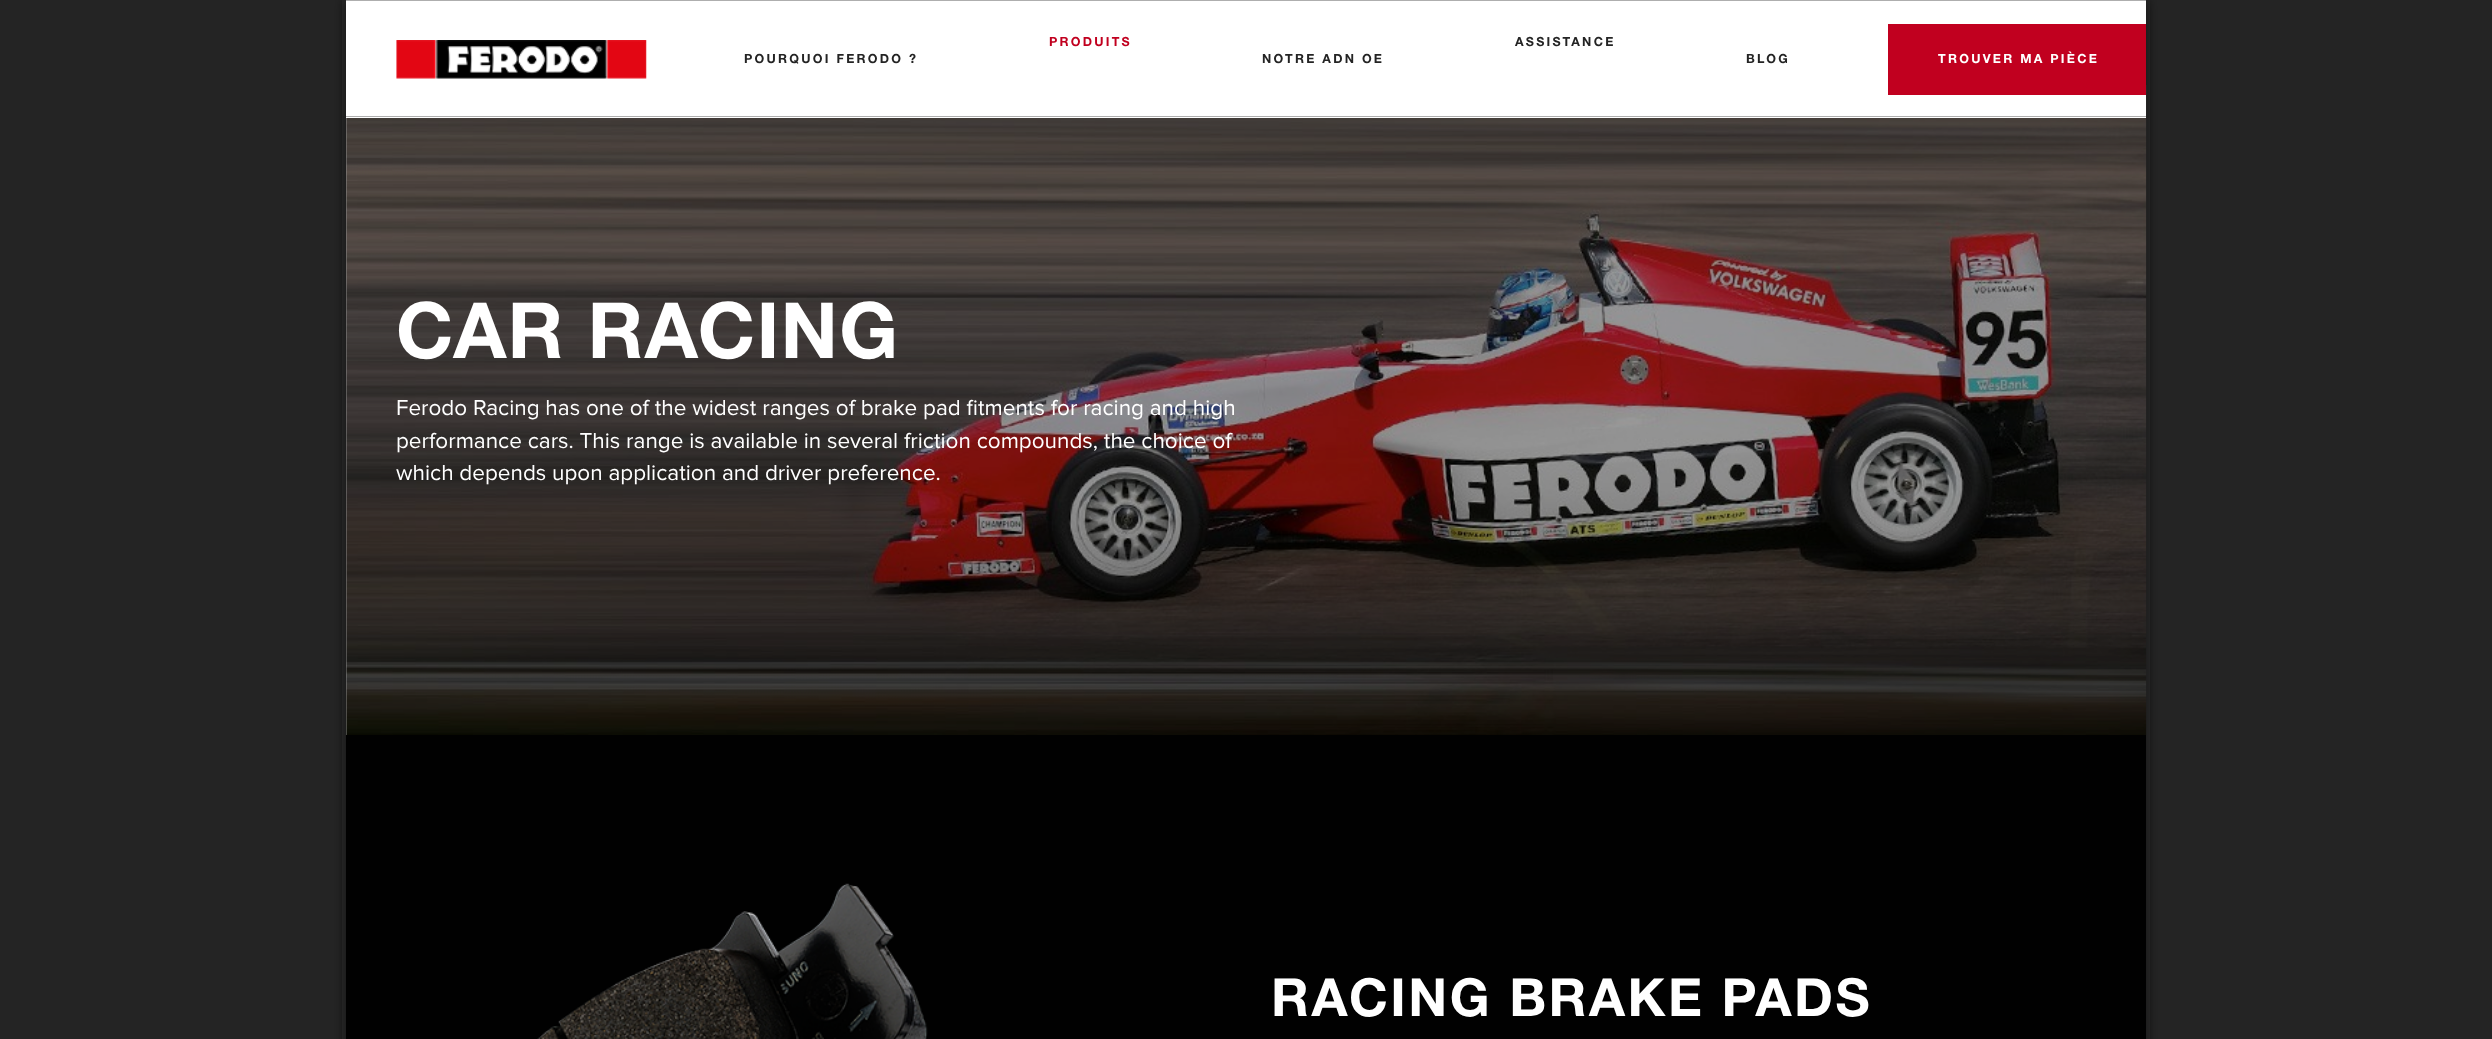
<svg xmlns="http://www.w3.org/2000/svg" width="2492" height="1039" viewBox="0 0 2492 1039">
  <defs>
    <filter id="blur1" x="-50%" y="-200%" width="200%" height="500%"><feGaussianBlur stdDeviation="6"/></filter>
  </defs>
  <rect width="100%" height="100%" fill="#242424"/>
  <rect x="346" y="0" width="1800" height="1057" fill="#181818" filter="url(#blur1)"/>
  <rect x="346" y="118" width="1" height="617" fill="#ffffff"/>
  <image x="346" y="85" width="1801" height="650" href="img2.png"/>
  <rect x="346" y="1" width="1800" height="117" fill="#ffffff"/>
  <rect x="346" y="0" width="1800" height="1" fill="#aeaeae"/>
  <rect x="346" y="116" width="1800" height="1" fill="#aeaeae"/>
  <image x="396" y="40" width="251" height="39" href="img1.png"/>
  <text x="1049" y="46" font-family="'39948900'" font-size="12.5" letter-spacing="2.25" fill="#c1001f">PRODUITS</text>
  <text x="1515" y="46" font-family="'39948900'" font-size="12.5" letter-spacing="2.25" fill="#242424">ASSISTANCE</text>
  <text x="744" y="63" font-family="'39948900'" font-size="12.5" letter-spacing="2.25" fill="#242424">POURQUOI FERODO ?</text>
  <text x="1262" y="63" font-family="'39948900'" font-size="12.5" letter-spacing="2.25" fill="#242424">NOTRE ADN OE</text>
  <text x="1746" y="63" font-family="'39948900'" font-size="12.5" letter-spacing="2.25" fill="#242424">BLOG</text>
  <rect x="1888" y="24" width="258" height="71" fill="#c1001f"/>
  <text x="1938" y="63" font-family="'39948900'" font-size="12.5" letter-spacing="2.25" fill="#ffffff">TROUVER MA PIÈCE</text>
  <rect x="346" y="118" width="1800" height="617" fill="#000000" fill-opacity="0.4"/>
  <text x="396" y="358" font-family="'39948900'" font-size="77.5" letter-spacing="1.25" fill="#ffffff">CAR RACING</text>
  <text x="396" y="415" font-family="Proxima Nova" font-size="22.5" fill="#ffffff">Ferodo Racing has one of the widest ranges of brake pad fitments for racing and high</text>
  <text x="396" y="448" font-family="Proxima Nova" font-size="22.5" fill="#ffffff">performance cars. This range is available in several friction compounds, the choice of</text>
  <text x="396" y="480" font-family="Proxima Nova" font-size="22.5" fill="#ffffff">which depends upon application and driver preference.</text>
  <rect x="346" y="735" width="1800" height="304" fill="#010101"/>
  <image x="537" y="883" width="391" height="156" href="img3.png"/>
  <text x="1271" y="1016" font-family="'39948900'" font-size="52.5" letter-spacing="2.5" fill="#ffffff">RACING BRAKE PADS</text>
</svg>
